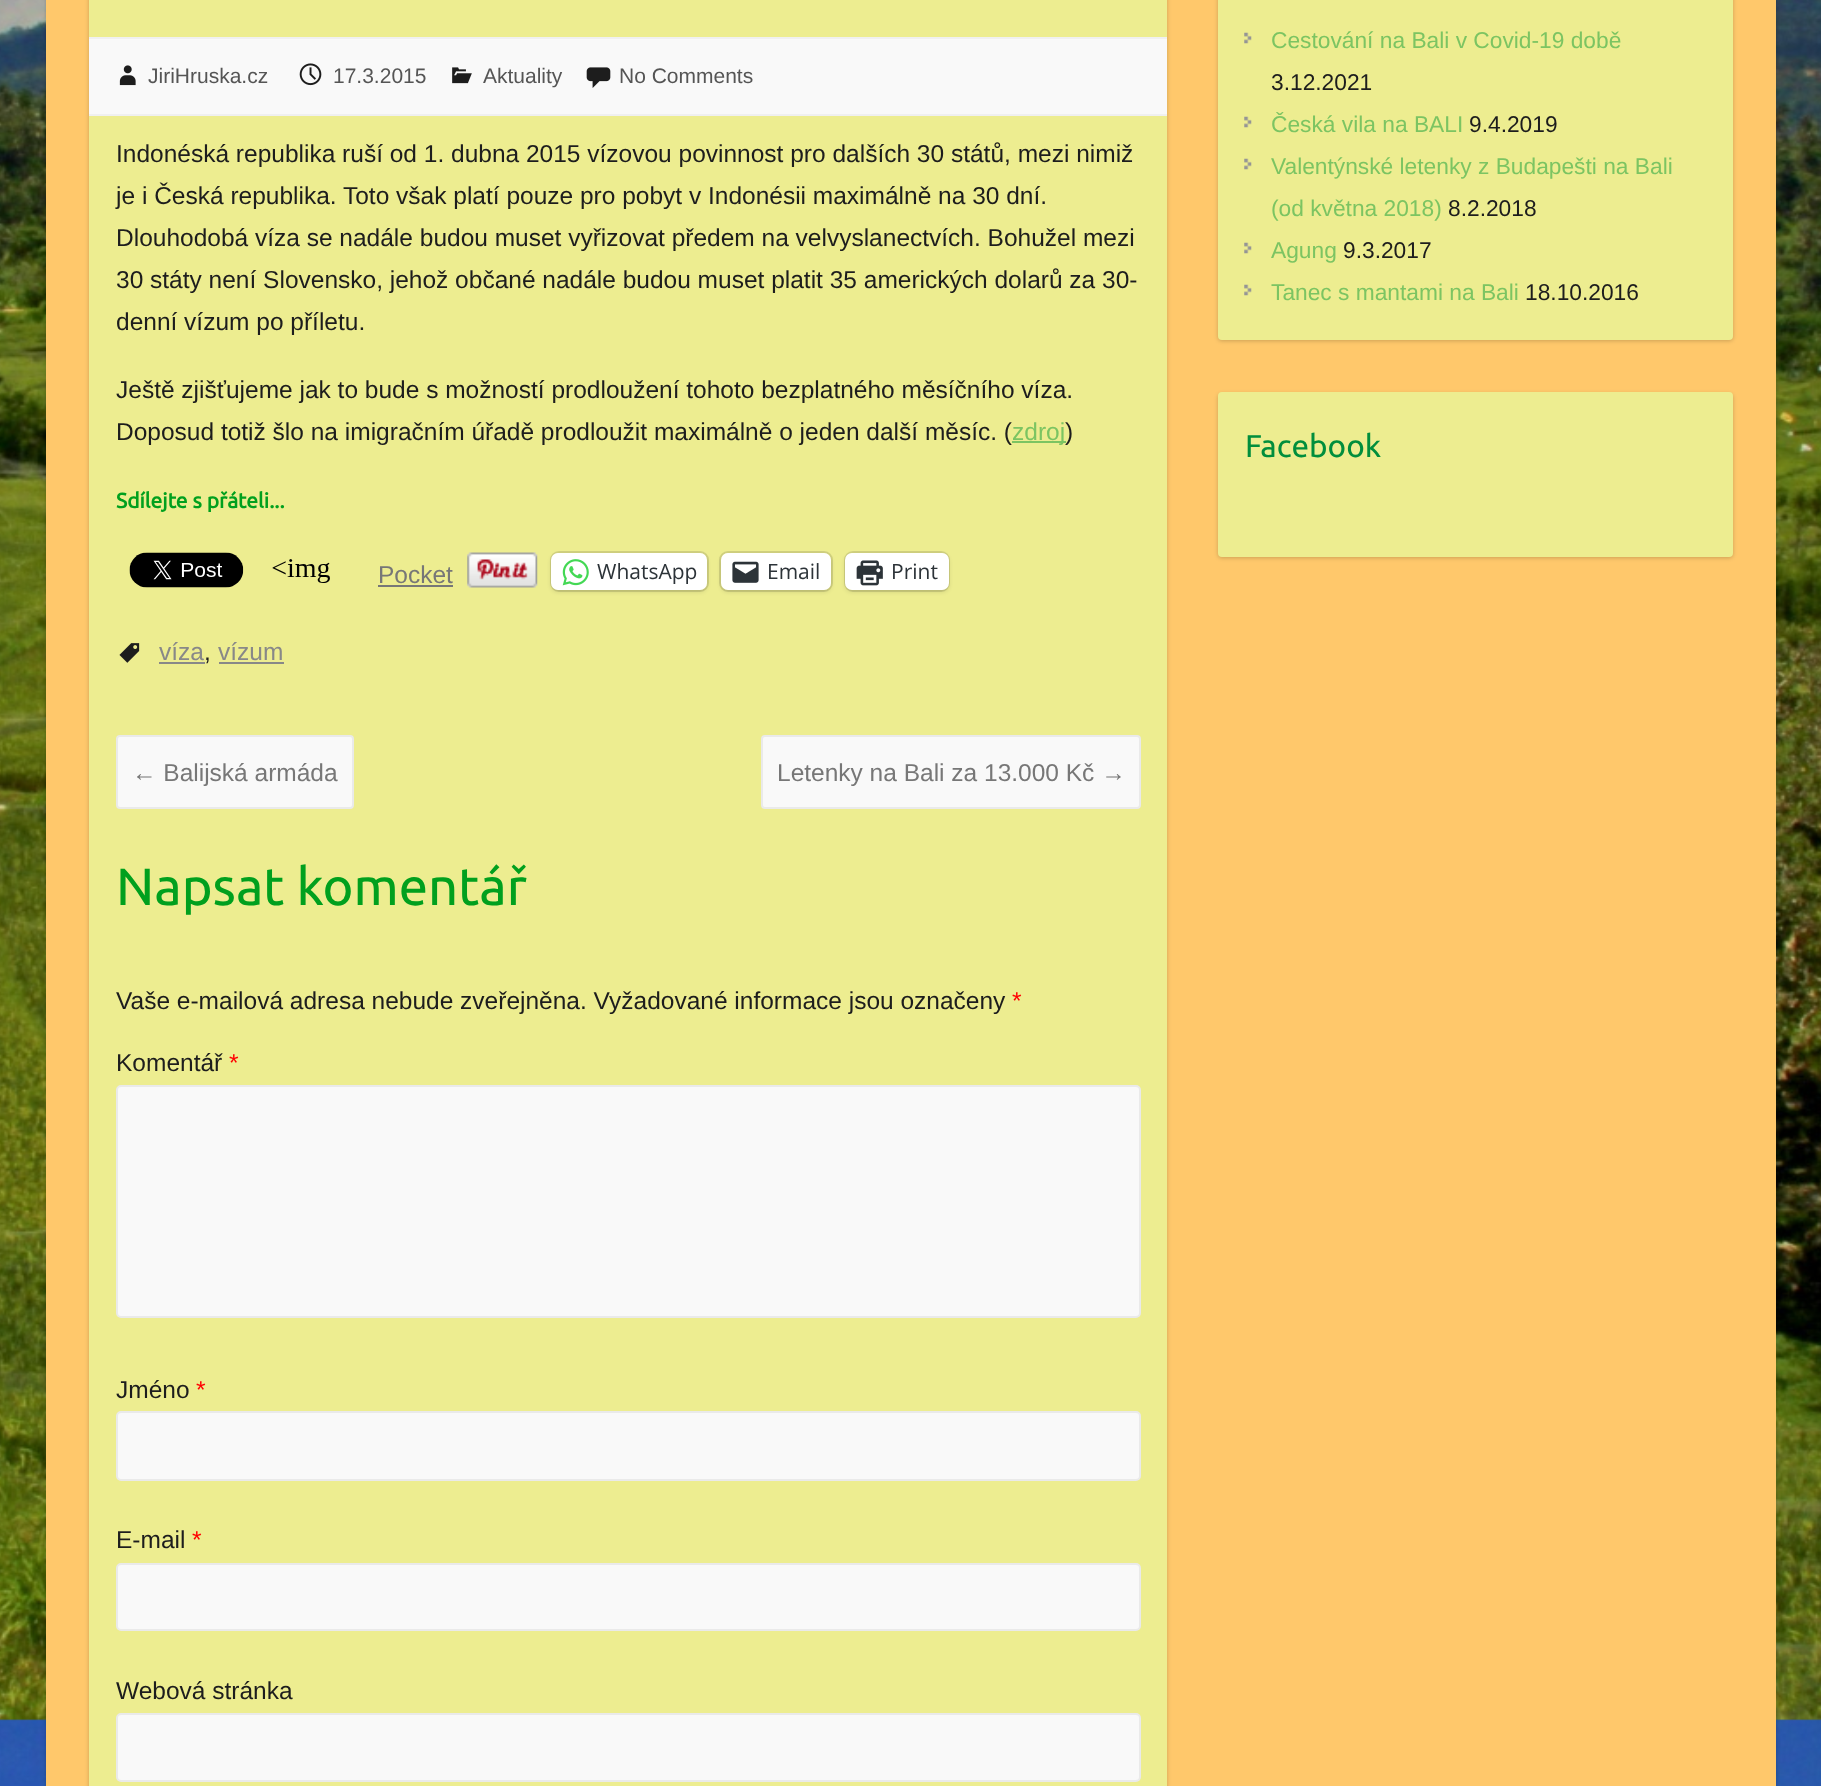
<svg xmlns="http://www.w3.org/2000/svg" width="1821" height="1786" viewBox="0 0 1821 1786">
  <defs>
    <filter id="blur1" x="-50%" y="-200%" width="200%" height="500%"><feGaussianBlur stdDeviation="2"/></filter>
  </defs>
  <rect width="100%" height="100%" fill="#ffffff"/>
  <image x="0" y="0" width="1821" height="1786" href="img1.png"/>
  <rect x="46" y="-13" width="1730" height="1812" rx="7" fill="#000000" fill-opacity="0.2" filter="url(#blur1)"/>
  <rect x="46" y="0" width="1730" height="1786" fill="#ffc86b"/>
  <rect x="89" y="-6" width="1078" height="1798" fill="#000000" fill-opacity="0.2" filter="url(#blur1)"/>
  <rect x="89" y="0" width="1078" height="1786" fill="#eded90"/>
  <rect x="89" y="39" width="1078" height="75" fill="#f9f9f9"/>
  <rect x="89" y="37" width="1078" height="2" fill="#f0f0f0"/>
  <rect x="89" y="114" width="1078" height="2" fill="#f0f0f0"/>
  <image x="119" y="65" width="17" height="21" href="img2.png"/>
  <text x="148" y="83" font-family="Liberation Sans" font-size="21" fill="#555555">JiriHruska.cz</text>
  <image x="299" y="63" width="23" height="23" href="img3.png"/>
  <text x="333" y="83" font-family="Liberation Sans" font-size="21" fill="#555555">17.3.2015</text>
  <image x="452" y="67" width="20" height="17" href="img4.png"/>
  <text x="483" y="83" font-family="Liberation Sans" font-size="21" fill="#555555">Aktuality</text>
  <image x="586" y="67" width="25" height="21" href="img5.png"/>
  <text x="619" y="83" font-family="Liberation Sans" font-size="21" fill="#555555">No Comments</text>
  <text x="116" y="162" font-family="Liberation Sans" font-size="24.5" fill="#1d1d1d">Indonéská republika ruší od 1. dubna 2015 vízovou povinnost pro dalších 30 států, mezi nimiž</text>
  <text x="116" y="204" font-family="Liberation Sans" font-size="24.5" fill="#1d1d1d">je i Česká republika. Toto však platí pouze pro pobyt v Indonésii maximálně na 30 dní.</text>
  <text x="116" y="246" font-family="Liberation Sans" font-size="24.5" fill="#1d1d1d">Dlouhodobá víza se nadále budou muset vyřizovat předem na velvyslanectvích. Bohužel mezi</text>
  <text x="116" y="288" font-family="Liberation Sans" font-size="24.5" fill="#1d1d1d">30 státy není Slovensko, jehož občané nadále budou muset platit 35 amerických dolarů za 30-</text>
  <text x="116" y="330" font-family="Liberation Sans" font-size="24.5" fill="#1d1d1d">denní vízum po příletu.</text>
  <text x="116" y="398" font-family="Liberation Sans" font-size="24.5" fill="#1d1d1d">Ještě zjišťujeme jak to bude s možností prodloužení tohoto bezplatného měsíčního víza.</text>
  <text x="116" y="440" font-family="Liberation Sans" font-size="24.5" fill="#1d1d1d">Doposud totiž šlo na imigračním úřadě prodloužit maximálně o jeden další měsíc. (</text>
  <rect x="1012" y="441" width="54" height="2" fill="#7cc462"/>
  <text x="1012" y="440" font-family="Liberation Sans" font-size="24.5" fill="#7cc462">zdroj</text>
  <text x="1065" y="440" font-family="Liberation Sans" font-size="24.5" fill="#1d1d1d">)</text>
  <text x="116" y="508" font-family="Ubuntu" font-size="21" font-weight="bold" fill="#01a01e">Sdílejte s přáteli...</text>
  <image x="129" y="552" width="115" height="36" href="img6.png"/>
  <image x="272" y="559" width="58" height="24" href="img7.png"/>
  <text x="378" y="583" font-family="Liberation Sans" font-size="24.5" fill="#777777">Pocket</text>
  <rect x="378" y="585" width="75" height="2" fill="#777777"/>
  <image x="467" y="552" width="71" height="36" href="img8.png"/>
  <rect x="551" y="552" width="157" height="39" rx="8" fill="none" stroke="#d1d17f" stroke-width="2"/>
  <rect x="551" y="555" width="156" height="37" rx="7" fill="#000000" fill-opacity="0.12" filter="url(#blur1)"/>
  <rect x="551" y="553" width="156" height="37" rx="7" fill="#ffffff"/>
  <image x="562" y="559" width="27" height="27" href="img9.png"/>
  <text x="597" y="579" font-family="Open Sans" font-size="21" fill="#2c3338">WhatsApp</text>
  <rect x="720" y="552" width="112" height="39" rx="8" fill="none" stroke="#d1d17f" stroke-width="2"/>
  <rect x="721" y="555" width="110" height="37" rx="7" fill="#000000" fill-opacity="0.12" filter="url(#blur1)"/>
  <rect x="721" y="553" width="110" height="37" rx="7" fill="#ffffff"/>
  <image x="732" y="561" width="27" height="22" href="img10.png"/>
  <text x="767" y="579" font-family="Open Sans" font-size="21" fill="#2c3338">Email</text>
  <rect x="845" y="552" width="104" height="39" rx="8" fill="none" stroke="#d1d17f" stroke-width="2"/>
  <rect x="845" y="555" width="104" height="37" rx="7" fill="#000000" fill-opacity="0.12" filter="url(#blur1)"/>
  <rect x="845" y="553" width="104" height="37" rx="7" fill="#ffffff"/>
  <image x="856" y="560" width="27" height="26" href="img11.png"/>
  <text x="891" y="579" font-family="Open Sans" font-size="21" fill="#2c3338">Print</text>
  <image x="119" y="643" width="21" height="20" href="img12.png"/>
  <text x="159" y="660" font-family="Liberation Sans" font-size="24.5" fill="#888888">víza</text>
  <rect x="159" y="662" width="46" height="2" fill="#888888"/>
  <text x="204" y="660" font-family="Liberation Sans" font-size="24.5" fill="#1d1d1d">,</text>
  <text x="218" y="660" font-family="Liberation Sans" font-size="24.5" fill="#888888">vízum</text>
  <rect x="219" y="662" width="65" height="2" fill="#888888"/>
  <rect x="117" y="736" width="236" height="72" rx="3" fill="#f9f9f9" stroke="#eaeaea" stroke-width="2"/>
  <text x="132" y="781" font-family="Liberation Sans" font-size="24.5" fill="#777777">← Balijská armáda</text>
  <rect x="762" y="736" width="378" height="72" rx="3" fill="#f9f9f9" stroke="#eaeaea" stroke-width="2"/>
  <text x="777" y="781" font-family="Liberation Sans" font-size="24.5" fill="#777777">Letenky na Bali za 13.000 Kč →</text>
  <text x="116" y="905" font-family="Ubuntu" font-size="52.5" fill="#01a01e">Napsat komentář</text>
  <text x="116" y="1009" font-family="Liberation Sans" font-size="24.5" fill="#1d1d1d">Vaše e-mailová adresa nebude zveřejněna. Vyžadované informace jsou označeny</text>
  <text x="1012" y="1009" font-family="Liberation Sans" font-size="24.5" fill="#ff0000">*</text>
  <text x="116" y="1071" font-family="Liberation Sans" font-size="24.5" fill="#1d1d1d">Komentář</text>
  <text x="229" y="1071" font-family="Liberation Sans" font-size="24.5" fill="#ff0000">*</text>
  <rect x="117" y="1086" width="1023" height="231" rx="4" fill="#f9f9f9" stroke="#eaeaea" stroke-width="2"/>
  <text x="116" y="1398" font-family="Liberation Sans" font-size="24.5" fill="#1d1d1d">Jméno</text>
  <text x="196" y="1398" font-family="Liberation Sans" font-size="24.5" fill="#ff0000">*</text>
  <rect x="117" y="1412" width="1023" height="68" rx="4" fill="#f9f9f9" stroke="#eaeaea" stroke-width="2"/>
  <text x="116" y="1548" font-family="Liberation Sans" font-size="24.5" fill="#1d1d1d">E-mail</text>
  <text x="192" y="1548" font-family="Liberation Sans" font-size="24.5" fill="#ff0000">*</text>
  <rect x="117" y="1564" width="1023" height="66" rx="4" fill="#f9f9f9" stroke="#eaeaea" stroke-width="2"/>
  <text x="116" y="1699" font-family="Liberation Sans" font-size="24.5" fill="#1d1d1d">Webová stránka</text>
  <rect x="117" y="1714" width="1023" height="67" rx="4" fill="#f9f9f9" stroke="#eaeaea" stroke-width="2"/>
  <rect x="1218" y="-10" width="515" height="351" rx="4" fill="#000000" fill-opacity="0.2" filter="url(#blur1)"/>
  <rect x="1218" y="-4" width="515" height="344" rx="4" fill="#eded90"/>
  <image x="1244" y="32" width="8" height="12" href="img13.png"/>
  <text x="1271" y="48" font-family="Liberation Sans" font-size="22.75" fill="#7cc462">Cestování na Bali v Covid-19 době</text>
  <text x="1271" y="90" font-family="Liberation Sans" font-size="22.75" fill="#1d1d1d">3.12.2021</text>
  <image x="1244" y="116" width="8" height="12" href="img13.png"/>
  <text x="1271" y="132" font-family="Liberation Sans" font-size="22.75" fill="#7cc462">Česká vila na BALI</text>
  <text x="1469" y="132" font-family="Liberation Sans" font-size="22.75" fill="#1d1d1d">9.4.2019</text>
  <image x="1244" y="158" width="8" height="12" href="img13.png"/>
  <text x="1271" y="174" font-family="Liberation Sans" font-size="22.75" fill="#7cc462">Valentýnské letenky z Budapešti na Bali</text>
  <text x="1271" y="216" font-family="Liberation Sans" font-size="22.75" fill="#7cc462">(od května 2018)</text>
  <text x="1448" y="216" font-family="Liberation Sans" font-size="22.75" fill="#1d1d1d">8.2.2018</text>
  <image x="1244" y="242" width="8" height="12" href="img13.png"/>
  <text x="1271" y="258" font-family="Liberation Sans" font-size="22.75" fill="#7cc462">Agung</text>
  <text x="1343" y="258" font-family="Liberation Sans" font-size="22.75" fill="#1d1d1d">9.3.2017</text>
  <image x="1244" y="284" width="8" height="12" href="img13.png"/>
  <text x="1271" y="300" font-family="Liberation Sans" font-size="22.75" fill="#7cc462">Tanec s mantami na Bali</text>
  <text x="1525" y="300" font-family="Liberation Sans" font-size="22.75" fill="#1d1d1d">18.10.2016</text>
  <rect x="1218" y="394" width="515" height="164" rx="4" fill="#000000" fill-opacity="0.2" filter="url(#blur1)"/>
  <rect x="1218" y="392" width="515" height="165" rx="4" fill="#eded90"/>
  <text x="1245" y="457" font-family="Ubuntu" font-size="31.5" fill="#018e3c">Facebook</text>
</svg>
